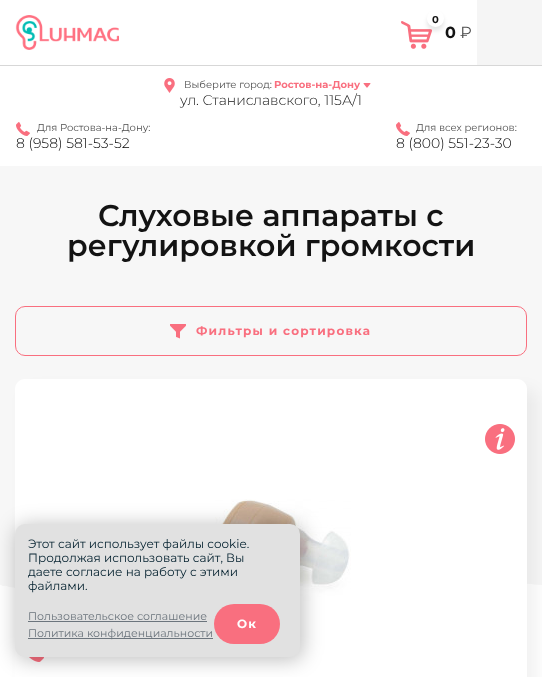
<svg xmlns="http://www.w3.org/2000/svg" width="542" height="677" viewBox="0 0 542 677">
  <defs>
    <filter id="blur1" x="-50%" y="-200%" width="200%" height="500%"><feGaussianBlur stdDeviation="2"/></filter>
    <filter id="blur2" x="-50%" y="-200%" width="200%" height="500%"><feGaussianBlur stdDeviation="7.5"/></filter>
    <filter id="blur3" x="-50%" y="-200%" width="200%" height="500%"><feGaussianBlur stdDeviation="10"/></filter>
  </defs>
  <rect width="100%" height="100%" fill="#ffffff"/>
  <rect x="0" y="65" width="542" height="1" fill="#d7d7d7"/>
  <image x="15" y="15" width="104" height="35" href="img1.png"/>
  <image x="401" y="21" width="31" height="28" href="img2.png"/>
  <rect x="427" y="14" width="17" height="17" rx="8.5" fill="#000000" fill-opacity="0.1" filter="url(#blur1)"/>
  <circle cx="435.5" cy="18.5" r="8.5" fill="#ffffff"/>
  <text x="432" y="23" font-family="Montserrat" font-size="10" font-weight="bold" fill="#131313">0</text>
  <text x="445" y="38" font-family="Montserrat" font-size="16" font-weight="bold" fill="#131313">0</text>
  <text x="460" y="38" font-family="Montserrat" font-size="16" fill="#4e4e4e">₽</text>
  <rect x="477" y="0" width="65" height="65" fill="#f5f5f5"/>
  <image x="164" y="78" width="11" height="15" href="img3.png"/>
  <text x="184" y="88" font-family="Montserrat" font-size="10" fill="#4e4e4e">Выберите город:</text>
  <text x="274" y="88" font-family="Montserrat" font-size="10" font-weight="bold" fill="#f96f7f">Ростов-на-Дону</text>
  <image x="363" y="83" width="8" height="5" href="img4.png"/>
  <text x="180" y="105" font-family="Montserrat" font-size="14" font-weight="300" fill="#131313">ул. Станиславского, 115А/1</text>
  <image x="16" y="122" width="14" height="14" href="img5.png"/>
  <text x="37" y="131" font-family="Montserrat" font-size="10" fill="#4e4e4e">Для Ростова-на-Дону:</text>
  <text x="16" y="148" font-family="Montserrat" font-size="14" font-weight="300" fill="#000000">8 (958) 581-53-52</text>
  <image x="396" y="122" width="14" height="14" href="img5.png"/>
  <text x="416" y="131" font-family="Montserrat" font-size="10" fill="#4e4e4e">Для всех регионов:</text>
  <text x="396" y="148" font-family="Montserrat" font-size="14" font-weight="300" fill="#000000">8 (800) 551-23-30</text>
  <rect x="0" y="166" width="542" height="412" fill="#f7f7f7"/>
  <text x="98" y="226" font-family="Montserrat" font-size="30" font-weight="600" fill="#131313">Слуховые аппараты с</text>
  <text x="67" y="256" font-family="Montserrat" font-size="30" font-weight="600" fill="#131313">регулировкой громкости</text>
  <rect x="15.5" y="306.5" width="511" height="49" rx="9.5" fill="none" stroke="#f96f7f"/>
  <image x="170" y="324" width="16" height="15" href="img6.png"/>
  <text x="196" y="335" font-family="Montserrat" font-size="12" font-weight="bold" letter-spacing="1.2" fill="#f96f7f">Фильтры и сортировка</text>
  <image x="0" y="578" width="542" height="10" href="img9.png"/>
  <rect x="25" y="389" width="512" height="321" rx="10" fill="#000000" fill-opacity="0.05" filter="url(#blur2)"/>
  <path d="M25 379H517C522.5 379 527 383.5 527 389V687H15V389C15 383.5 19.5 379 25 379Z" fill="#ffffff"/>
  <image x="207" y="499" width="144" height="102" href="img7.png"/>
  <image x="485" y="424" width="30" height="30" href="img8.png"/>
  <image x="29" y="657" width="15" height="5" href="img10.png"/>
  <rect x="16" y="525" width="287" height="135" rx="11" fill="#000000" fill-opacity="0.25" filter="url(#blur3)"/>
  <rect x="15" y="524" width="285" height="133" rx="10" fill="#e1e1e1"/>
  <text x="28" y="548" font-family="Montserrat" font-size="12" fill="#03202e">Этот сайт использует файлы cookie.</text>
  <text x="28" y="562" font-family="Montserrat" font-size="12" fill="#03202e">Продолжая использовать сайт, Вы</text>
  <text x="28" y="576" font-family="Montserrat" font-size="12" fill="#03202e">даете согласие на работу с этими</text>
  <text x="28" y="590" font-family="Montserrat" font-size="12" fill="#03202e">файлами.</text>
  <text x="28" y="620" font-family="Montserrat" font-size="11" fill="#6c757d">Пользовательское соглашение</text>
  <rect x="28" y="621" width="179" height="1" fill="#6c757d"/>
  <rect x="28" y="638" width="185" height="1" fill="#6c757d"/>
  <text x="28" y="637" font-family="Montserrat" font-size="11" fill="#6c757d">Политика конфиденциальности</text>
  <rect x="214" y="604" width="66" height="40" rx="20" fill="#f96f7f"/>
  <text x="237" y="628" font-family="Montserrat" font-size="12" font-weight="bold" letter-spacing="1.2" fill="#ffffff">Ок</text>
</svg>
